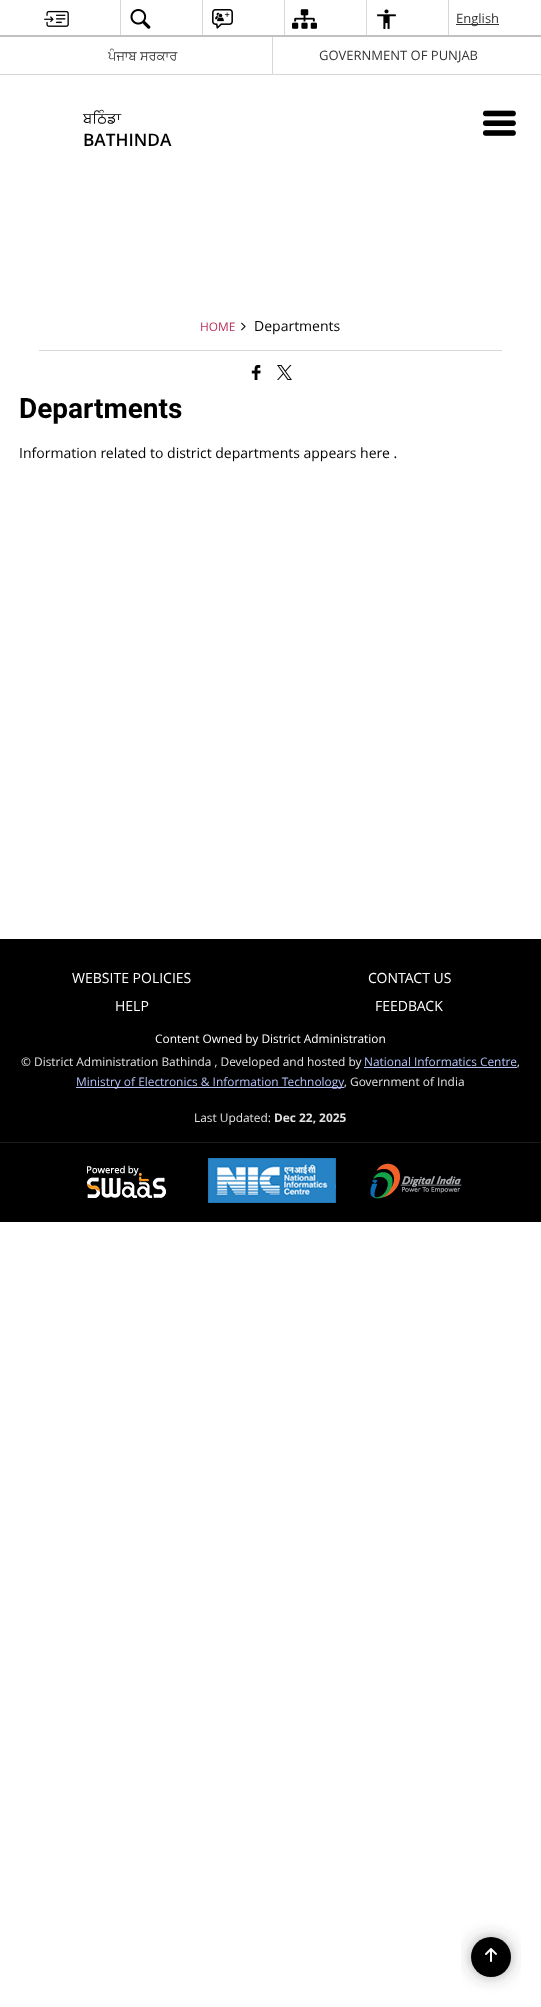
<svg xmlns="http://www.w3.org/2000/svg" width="541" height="2007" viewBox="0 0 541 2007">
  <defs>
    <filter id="blur1" x="-50%" y="-200%" width="200%" height="500%"><feGaussianBlur stdDeviation="9.5"/></filter>
  </defs>
  <rect width="100%" height="100%" fill="#ffffff"/>
  <rect x="0" y="74" width="541" height="1" fill="#d8d8d8"/>
  <image x="44" y="10" width="25" height="17" href="img1.png"/>
  <rect x="120" y="0" width="1" height="37" fill="#d8d8d8"/>
  <image x="130" y="9" width="21" height="20" href="img2.png"/>
  <rect x="202" y="0" width="1" height="37" fill="#d8d8d8"/>
  <image x="212" y="9" width="21" height="20" href="img3.png"/>
  <rect x="284" y="0" width="1" height="37" fill="#d8d8d8"/>
  <image x="292" y="9" width="25" height="20" href="img4.png"/>
  <rect x="366" y="0" width="1" height="37" fill="#d8d8d8"/>
  <image x="377" y="9" width="19" height="20" href="img5.png"/>
  <rect x="448" y="0" width="1" height="37" fill="#d8d8d8"/>
  <rect x="456" y="24" width="43" height="1" fill="#333333"/>
  <text x="456" y="23" font-family="Open Sans" font-size="13" fill="#333333">English</text>
  <text x="108" y="60" font-family="FreeSans" font-size="13" fill="#333333">ਪੰਜਾਬ ਸਰਕਾਰ</text>
  <rect x="272" y="37" width="1" height="37" fill="#d8d8d8"/>
  <text x="319" y="60" font-family="Open Sans" font-size="13" fill="#333333">GOVERNMENT OF PUNJAB</text>
  <rect x="0" y="35" width="541" height="2" fill="#c2c0c1"/>
  <text x="83" y="123" font-family="FreeSans" font-size="15" fill="#000000">ਬਠਿੰਡਾ</text>
  <text x="83" y="146" font-family="Open Sans" font-size="17.25" font-weight="600" fill="#000000">BATHINDA</text>
  <image x="482" y="110" width="34" height="26" href="img6.png"/>
  <rect x="39" y="350" width="463" height="1" fill="#d8d8d8"/>
  <text x="200" y="331" font-family="Open Sans" font-size="11.9" fill="#b83058">HOME</text>
  <image x="241" y="322" width="5" height="9" href="img7.png"/>
  <text x="254" y="331" font-family="Open Sans" font-size="14" fill="#000000">Departments</text>
  <image x="251" y="365" width="10" height="15" href="img8.png"/>
  <image x="277" y="365" width="15" height="15" href="img9.png"/>
  <text x="19" y="418" font-family="Roboto" font-size="28" font-weight="bold" fill="#000000">Departments</text>
  <text x="19" y="458" font-family="Open Sans" font-size="14" fill="#000000">Information related to district departments appears here .</text>
  <rect x="0" y="939" width="541" height="283" fill="#000000"/>
  <text x="72" y="983" font-family="Open Sans" font-size="14" fill="#ffffff">WEBSITE POLICIES</text>
  <text x="368" y="983" font-family="Open Sans" font-size="14" fill="#ffffff">CONTACT US</text>
  <text x="115" y="1011" font-family="Open Sans" font-size="14" fill="#ffffff">HELP</text>
  <text x="375" y="1011" font-family="Open Sans" font-size="14" fill="#ffffff">FEEDBACK</text>
  <text x="155" y="1043" font-family="Open Sans" font-size="11.9" fill="#ffffff">Content Owned by District Administration</text>
  <text x="21" y="1066" font-family="Open Sans" font-size="11.9" fill="#e1e1e1">© District Administration Bathinda , Developed and hosted by</text>
  <text x="364" y="1066" font-family="Open Sans" font-size="11.9" fill="#b4c1f5">National Informatics Centre</text>
  <rect x="364" y="1067" width="153" height="1" fill="#b4c1f5"/>
  <text x="517" y="1066" font-family="Open Sans" font-size="11.9" fill="#e1e1e1">,</text>
  <rect x="76" y="1087" width="268" height="1" fill="#b4c1f5"/>
  <text x="76" y="1086" font-family="Open Sans" font-size="11.9" fill="#b4c1f5">Ministry of Electronics &amp; Information Technology</text>
  <text x="344" y="1086" font-family="Open Sans" font-size="11.9" fill="#e1e1e1">, Government of India</text>
  <text x="194" y="1122" font-family="Open Sans" font-size="11.9" fill="#e1e1e1">Last Updated:</text>
  <text x="274" y="1122" font-family="Open Sans" font-size="11.9" font-weight="bold" fill="#e1e1e1">Dec 22, 2025</text>
  <rect x="0" y="1142" width="541" height="1" fill="#1a1a1a"/>
  <image x="87" y="1165" width="79" height="33" href="img10.png"/>
  <image x="208" y="1158" width="128" height="45" href="img11.png"/>
  <image x="370" y="1163" width="92" height="36" href="img12.png"/>
  <rect x="476" y="1942" width="30" height="30" rx="15" fill="#3c3c3c" filter="url(#blur1)"/>
  <circle cx="491" cy="1957" r="20" fill="#000000"/>
  <image x="485" y="1948" width="12" height="14" href="img13.png"/>
</svg>
